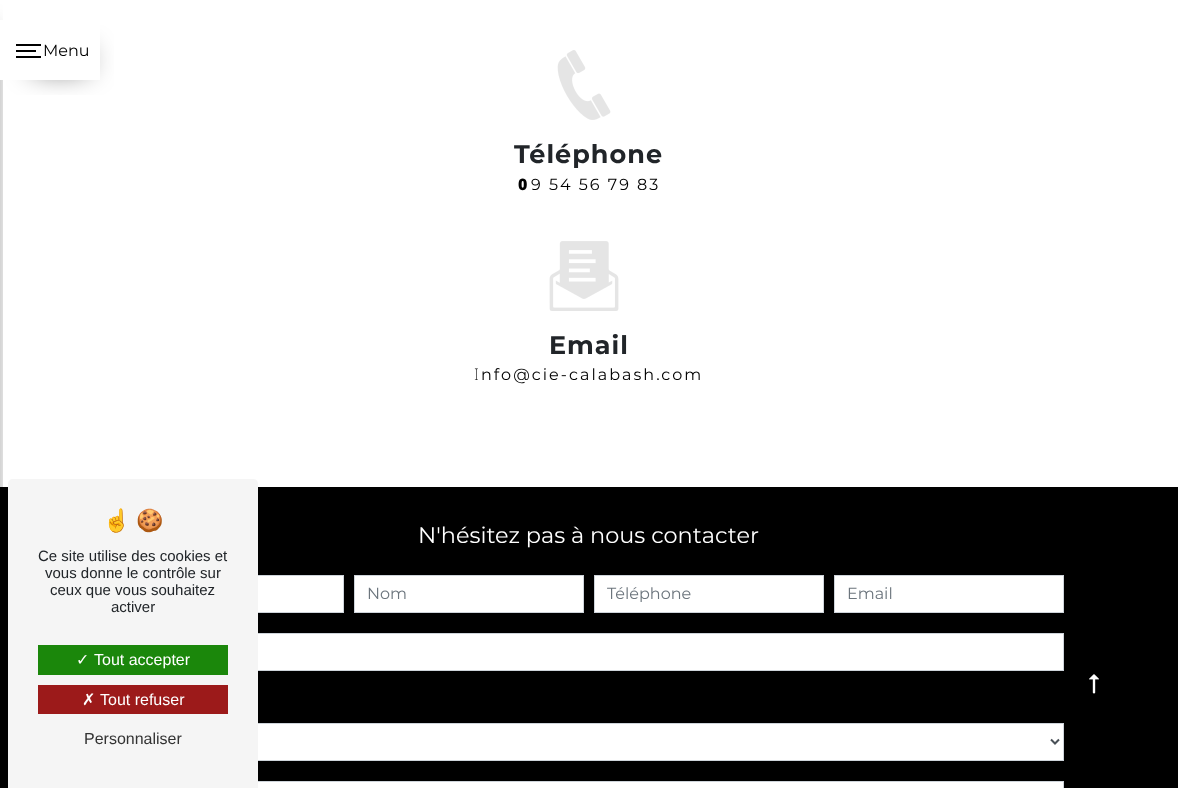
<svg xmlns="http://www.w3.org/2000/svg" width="1178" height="788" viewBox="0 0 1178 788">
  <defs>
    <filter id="blur1" x="-50%" y="-200%" width="200%" height="500%"><feGaussianBlur stdDeviation="14.5"/></filter>
  </defs>
  <rect width="100%" height="100%" fill="#000000"/>
  <rect x="0" y="0" width="1178" height="487" fill="#ffffff"/>
  <rect x="-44" y="33" width="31" height="742" fill="#000000" filter="url(#blur1)"/>
  <rect x="33" y="53" width="54" height="14" fill="#000000" filter="url(#blur1)"/>
  <rect x="0" y="20" width="100" height="60" fill="#ffffff"/>
  <rect x="16" y="44" width="25" height="2" fill="#000000"/>
  <text x="43" y="56" font-family="Montserrat" font-size="16" fill="#000000">Menu</text>
  <rect x="16" y="50" width="20" height="2" fill="#000000"/>
  <rect x="16" y="56" width="25" height="2" fill="#000000"/>
  <image x="557" y="50" width="54" height="70" href="img1.png"/>
  <text x="514" y="163" font-family="Montserrat" font-size="25.5" font-weight="bold" letter-spacing="1" fill="#212529">Téléphone</text>
  <text x="518" y="190" font-family="Noto Sans" font-size="16" font-weight="900" letter-spacing="2" fill="#000000">0</text>
  <text x="531" y="190" font-family="Montserrat" font-size="16" letter-spacing="2" fill="#000000">9 54 56 79 83</text>
  <image x="549" y="241" width="70" height="70" href="img2.png"/>
  <text x="549" y="354" font-family="Montserrat" font-size="25.5" font-weight="bold" letter-spacing="1" fill="#212529">Email</text>
  <text x="474" y="380" font-family="Noto Sans" font-size="16" font-weight="200" letter-spacing="2" fill="#000000">I</text>
  <text x="481" y="380" font-family="Montserrat" font-size="16" letter-spacing="2" fill="#000000">nfo@cie-calabash.com</text>
  <text x="418" y="543" font-family="Montserrat" font-size="22.4" fill="#ffffff">N'hésitez pas à nous contacter</text>
  <rect x="258" y="576" width="85" height="36" fill="#ffffff"/>
  <rect x="114.5" y="575.5" width="229" height="37" fill="none" stroke="#ced4da"/>
  <rect x="354.5" y="575.5" width="229" height="37" fill="#ffffff" stroke="#ced4da"/>
  <text x="367" y="599" font-family="Montserrat" font-size="16" fill="#6c757d">Nom</text>
  <rect x="594.5" y="575.5" width="229" height="37" fill="#ffffff" stroke="#ced4da"/>
  <text x="607" y="599" font-family="Montserrat" font-size="16" fill="#6c757d">Téléphone</text>
  <rect x="834.5" y="575.5" width="229" height="37" fill="#ffffff" stroke="#ced4da"/>
  <text x="847" y="599" font-family="Montserrat" font-size="16" fill="#6c757d">Email</text>
  <rect x="258" y="634" width="805" height="36" fill="#ffffff"/>
  <rect x="114.5" y="633.5" width="949" height="37" fill="none" stroke="#ced4da"/>
  <rect x="258" y="724" width="805" height="36" fill="#ffffff"/>
  <rect x="114.5" y="723.5" width="949" height="37" fill="none" stroke="#ced4da"/>
  <path d="M1051 739.5L1055 743.5L1059 739.5" fill="none" stroke="#495057" stroke-width="2"/>
  <rect x="258" y="782" width="805" height="6" fill="#ffffff"/>
  <rect x="114.5" y="781.5" width="949" height="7" fill="none" stroke="#ced4da"/>
  <image x="1089" y="674" width="10" height="20" href="img3.png"/>
  <path d="M13 479H253C256 479 258 481 258 484V788H8V484C8 481 10 479 13 479Z" fill="#f5f5f5"/>
  <text x="103" y="528" font-family="Noto Color Emoji" font-size="22" fill="#212529">☝</text>
  <text x="136" y="528" font-family="Noto Color Emoji" font-size="22" fill="#212529">🍪</text>
  <text x="38" y="561" font-family="Liberation Sans" font-size="15" fill="#212529">Ce site utilise des cookies et</text>
  <text x="45" y="578" font-family="Liberation Sans" font-size="15" fill="#212529">vous donne le contrôle sur</text>
  <text x="50" y="595" font-family="Liberation Sans" font-size="15" fill="#212529">ceux que vous souhaitez</text>
  <text x="111" y="612" font-family="Liberation Sans" font-size="15" fill="#212529">activer</text>
  <rect x="38" y="645" width="190" height="30" fill="#1b870b"/>
  <text x="76" y="665" font-family="DejaVu Sans" font-size="16" fill="#ffffff">✓</text>
  <text x="94" y="665" font-family="Liberation Sans" font-size="16" fill="#ffffff">Tout accepter</text>
  <rect x="38" y="685" width="190" height="29" fill="#9c1a1a"/>
  <text x="82" y="705" font-family="DejaVu Sans" font-size="16" fill="#ffffff">✗</text>
  <text x="100" y="705" font-family="Liberation Sans" font-size="16" fill="#ffffff">Tout refuser</text>
  <text x="84" y="744" font-family="Liberation Sans" font-size="16" fill="#333333">Personnaliser</text>
</svg>
